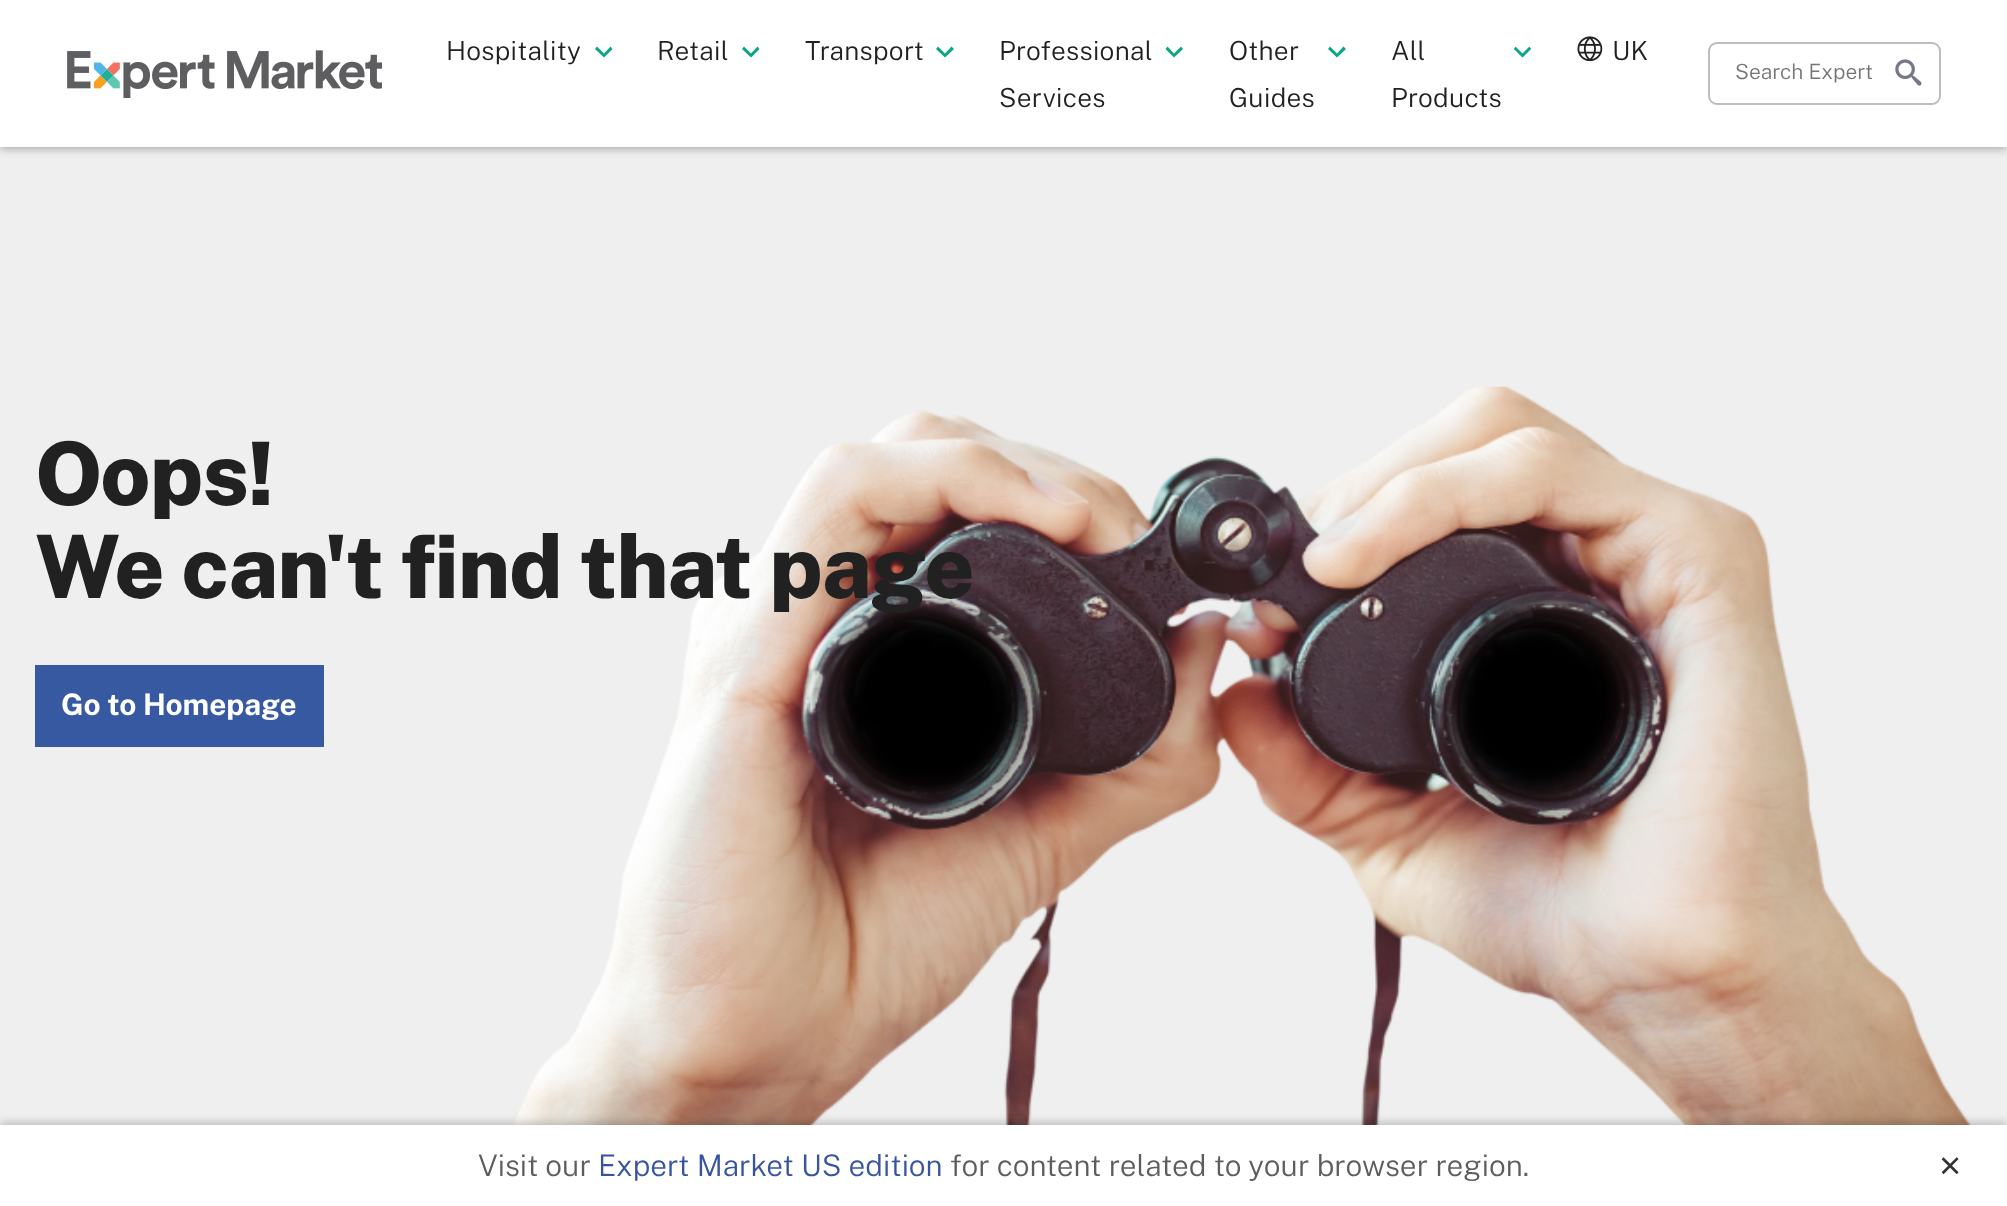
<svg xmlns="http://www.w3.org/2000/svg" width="2007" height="1206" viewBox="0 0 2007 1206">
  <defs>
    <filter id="blur1" x="-50%" y="-200%" width="200%" height="500%"><feGaussianBlur stdDeviation="4.5"/></filter>
  </defs>
  <rect width="100%" height="100%" fill="#efefef"/>
  <rect x="0" y="2" width="2007" height="147" fill="#000000" fill-opacity="0.3" filter="url(#blur1)"/>
  <rect x="0" y="0" width="2007" height="147" fill="#ffffff"/>
  <image x="67" y="50" width="315" height="48" href="img1.png"/>
  <text x="446" y="60" font-family="Public Sans" font-size="26.25" font-weight="300" letter-spacing="0.3" fill="#212121">Hospitality</text>
  <path d="M597 46.5L604 53.5L610.5 46.5L612.5 49L604 57.5L595 49Z" fill="#0da587"/>
  <text x="657" y="60" font-family="Public Sans" font-size="26.25" font-weight="300" letter-spacing="0.3" fill="#212121">Retail</text>
  <path d="M744 46.5L751 53.5L757.5 46.5L759.5 49L751 57.5L742 49Z" fill="#0da587"/>
  <text x="805" y="60" font-family="Public Sans" font-size="26.25" font-weight="300" letter-spacing="0.3" fill="#212121">Transport</text>
  <path d="M938 46.5L945 53.5L951.5 46.5L954 49L945 57.5L936 49Z" fill="#0da587"/>
  <text x="999" y="60" font-family="Public Sans" font-size="26.25" font-weight="300" letter-spacing="0.3" fill="#212121">Professional</text>
  <path d="M1167.5 46.5L1174 53.5L1181 46.5L1183 49L1174 57.5L1165.5 49Z" fill="#0da587"/>
  <text x="999" y="107" font-family="Public Sans" font-size="26.25" font-weight="300" letter-spacing="0.3" fill="#212121">Services</text>
  <text x="1229" y="60" font-family="Public Sans" font-size="26.25" font-weight="300" letter-spacing="0.3" fill="#212121">Other</text>
  <path d="M1330 46.5L1337 53.5L1343.5 46.5L1346 49L1337 57.5L1328 49Z" fill="#0da587"/>
  <text x="1229" y="107" font-family="Public Sans" font-size="26.25" font-weight="300" letter-spacing="0.3" fill="#212121">Guides</text>
  <text x="1391" y="60" font-family="Public Sans" font-size="26.25" font-weight="300" letter-spacing="0.3" fill="#212121">All</text>
  <image x="1514" y="46" width="17" height="12" href="img2.png"/>
  <text x="1391" y="107" font-family="Public Sans" font-size="26.25" font-weight="300" letter-spacing="0.3" fill="#212121">Products</text>
  <image x="1577" y="36" width="26" height="25" href="img3.png"/>
  <text x="1612" y="60" font-family="Public Sans" font-size="26.25" font-weight="300" letter-spacing="0.3" fill="#212121">UK</text>
  <rect x="1709" y="43" width="231" height="61" rx="8" fill="none" stroke="#bdbdbd" stroke-width="2"/>
  <text x="1735" y="79" font-family="Public Sans" font-size="21" font-weight="300" fill="#757575">Search Expert</text>
  <image x="1895" y="59" width="27" height="27" href="img4.png"/>
  <image x="510" y="386" width="1461" height="739" href="img5.png"/>
  <text x="35" y="505" font-family="Public Sans" font-size="87.5" font-weight="800" letter-spacing="-1.05" fill="#212121">Oops!</text>
  <text x="35" y="598" font-family="Public Sans" font-size="87.5" font-weight="800" letter-spacing="-1.05" fill="#212121">We can't find that page</text>
  <rect x="35" y="665" width="289" height="82" fill="#3659a1"/>
  <text x="61" y="715" font-family="Public Sans" font-size="29.75" font-weight="bold" fill="#ffffff">Go to Homepage</text>
  <rect x="0" y="1122" width="2007" height="82" fill="#000000" fill-opacity="0.2" filter="url(#blur1)"/>
  <rect x="0" y="1125" width="2007" height="81" fill="#ffffff"/>
  <text x="478" y="1176" font-family="Public Sans" font-size="29.75" font-weight="300" fill="#5d5d60">Visit our</text>
  <text x="598" y="1176" font-family="Public Sans" font-size="29.75" font-weight="300" fill="#3754a0">Expert Market US edition</text>
  <text x="950" y="1176" font-family="Public Sans" font-size="29.75" font-weight="300" fill="#5d5d60">for content related to your browser region.</text>
  <text x="1939" y="1181" font-family="Public Sans" font-size="42" font-weight="300" fill="#333333">×</text>
</svg>
